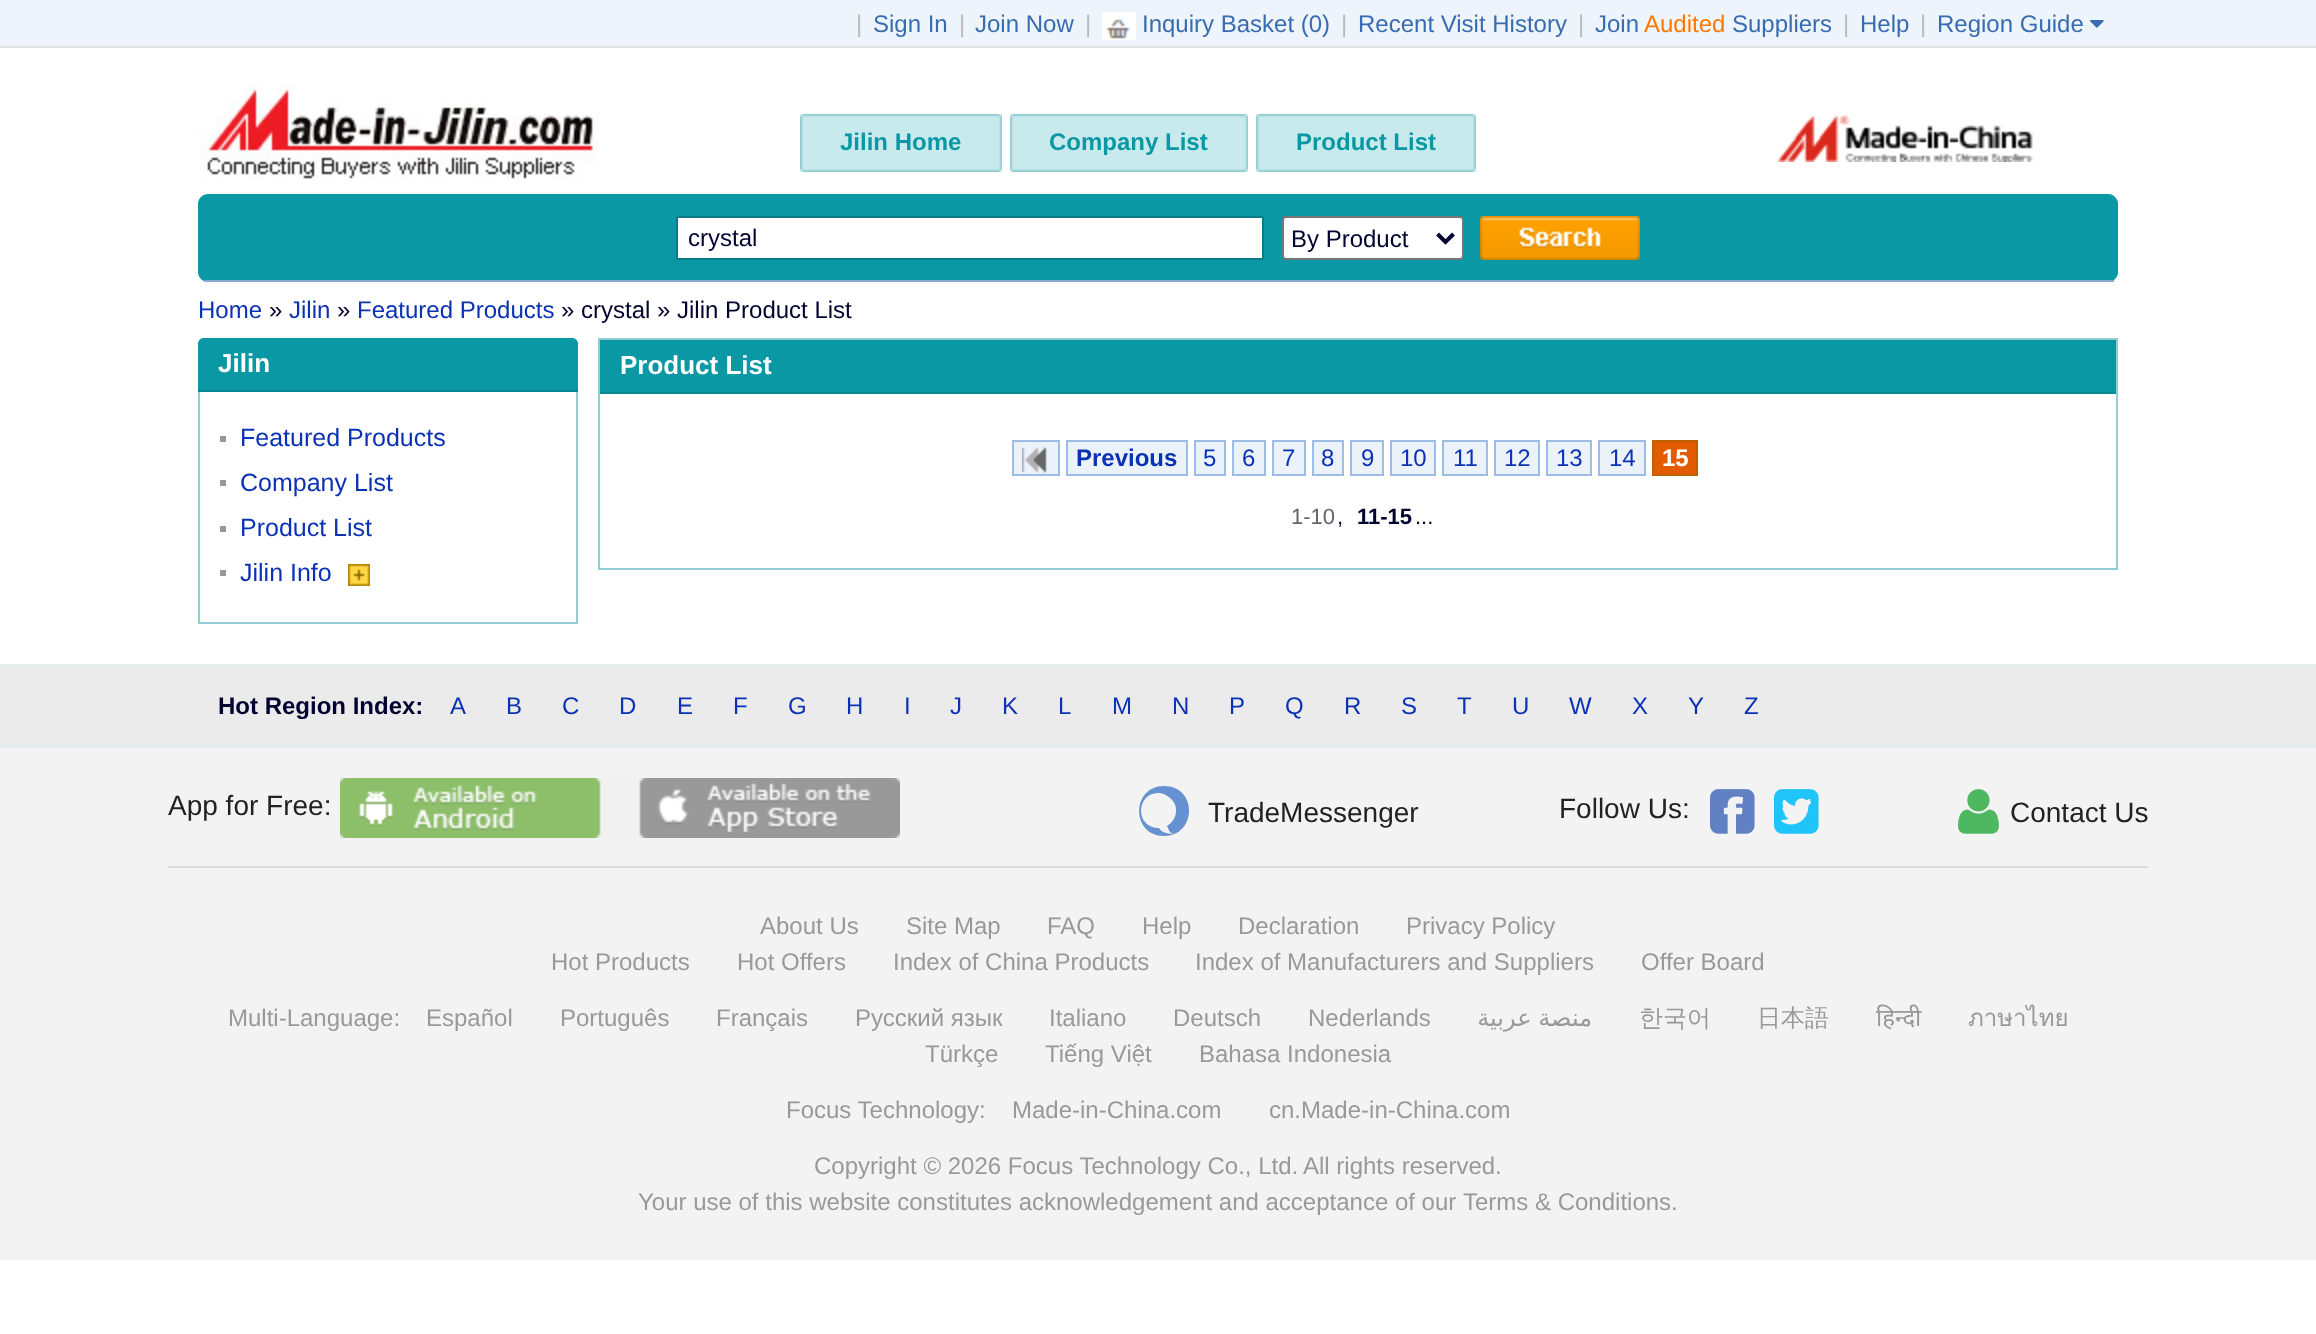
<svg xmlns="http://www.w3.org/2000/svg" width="2316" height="1334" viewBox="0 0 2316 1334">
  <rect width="100%" height="100%" fill="#ffffff"/>
  <rect x="0" y="0" width="2316" height="46" fill="#eef4fb"/>
  <rect x="0" y="46" width="2316" height="2" fill="#e2e2e2"/>
  <text x="856" y="32" font-family="Liberation Sans" font-size="24" fill="#bbbbbb">|</text>
  <text x="873" y="32" font-family="Liberation Sans" font-size="24" fill="#386cb1">Sign In</text>
  <text x="959" y="32" font-family="Liberation Sans" font-size="24" fill="#bbbbbb">|</text>
  <text x="975" y="32" font-family="Liberation Sans" font-size="24" fill="#386cb1">Join Now</text>
  <text x="1085" y="32" font-family="Liberation Sans" font-size="24" fill="#bbbbbb">|</text>
  <image x="1102" y="12" width="34" height="28" href="img1.png"/>
  <text x="1142" y="32" font-family="Liberation Sans" font-size="24" fill="#386cb1">Inquiry Basket (0)</text>
  <text x="1341" y="32" font-family="Liberation Sans" font-size="24" fill="#bbbbbb">|</text>
  <text x="1358" y="32" font-family="Liberation Sans" font-size="24" fill="#386cb1">Recent Visit History</text>
  <text x="1578" y="32" font-family="Liberation Sans" font-size="24" fill="#bbbbbb">|</text>
  <text x="1595" y="32" font-family="Liberation Sans" font-size="24" fill="#386cb1">Join</text>
  <text x="1644" y="32" font-family="Liberation Sans" font-size="24" fill="#ff7800">Audited</text>
  <text x="1732" y="32" font-family="Liberation Sans" font-size="24" fill="#386cb1">Suppliers</text>
  <text x="1843" y="32" font-family="Liberation Sans" font-size="24" fill="#bbbbbb">|</text>
  <text x="1860" y="32" font-family="Liberation Sans" font-size="24" fill="#386cb1">Help</text>
  <text x="1920" y="32" font-family="Liberation Sans" font-size="24" fill="#bbbbbb">|</text>
  <text x="1937" y="32" font-family="Liberation Sans" font-size="24" fill="#386cb1">Region Guide</text>
  <image x="2090" y="20" width="14" height="8" href="img2.png"/>
  <image x="198" y="84" width="400" height="96" href="img3.png"/>
  <image x="800" y="114" width="198" height="58" href="img4.png"/>
  <image x="998" y="114" width="4" height="58" href="img5.png"/>
  <text x="840" y="150" font-family="Liberation Sans" font-size="24" font-weight="bold" fill="#0a98a5">Jilin Home</text>
  <image x="1010" y="114" width="234" height="58" href="img6.png"/>
  <image x="1244" y="114" width="4" height="58" href="img7.png"/>
  <text x="1049" y="150" font-family="Liberation Sans" font-size="24" font-weight="bold" fill="#0a98a5">Company List</text>
  <image x="1256" y="114" width="216" height="58" href="img8.png"/>
  <image x="1472" y="114" width="4" height="58" href="img5.png"/>
  <text x="1296" y="150" font-family="Liberation Sans" font-size="24" font-weight="bold" fill="#0a98a5">Product List</text>
  <image x="1777" y="115" width="256" height="47" href="img9.png"/>
  <path d="M208 194H2108C2113.5 194 2118 198.5 2118 204V208H198V204C198 198.5 202.5 194 208 194Z" fill="#0a98a5"/>
  <path d="M198 208H2118V272C2118 277.5 2113.5 282 2108 282H208C202.5 282 198 277.5 198 272Z" fill="#0a98a5"/>
  <rect x="204" y="280" width="1910" height="2" fill="#8baad1"/>
  <rect x="677" y="217" width="586" height="42" fill="#ffffff" stroke="#067e89" stroke-width="2"/>
  <text x="688" y="246" font-family="Liberation Sans" font-size="24" fill="#02032f">crystal</text>
  <rect x="1283" y="217" width="180" height="42" rx="3" fill="#ffffff" stroke="#767676" stroke-width="2"/>
  <path d="M1437.5 234L1445.5 242L1453.5 234" fill="none" stroke="#02032f" stroke-width="4"/>
  <text x="1291" y="247" font-family="Liberation Sans" font-size="24" fill="#02032f">By Product</text>
  <image x="1480" y="216" width="160" height="44" href="img10.png"/>
  <text x="198" y="318" font-family="Liberation Sans" font-size="24" fill="#0b32b4">Home</text>
  <text x="269" y="318" font-family="Liberation Sans" font-size="24" fill="#02032f">»</text>
  <text x="289" y="318" font-family="Liberation Sans" font-size="24" fill="#0b32b4">Jilin</text>
  <text x="337" y="318" font-family="Liberation Sans" font-size="24" fill="#02032f">»</text>
  <text x="357" y="318" font-family="Liberation Sans" font-size="24" fill="#0b32b4">Featured Products</text>
  <text x="561" y="318" font-family="Liberation Sans" font-size="24" fill="#02032f">» crystal » Jilin Product List</text>
  <path d="M204 338H572C575.5 338 578 340.5 578 344V392H198V344C198 340.5 200.5 338 204 338Z" fill="#0a98a5"/>
  <rect x="198" y="390" width="380" height="2" fill="#068894"/>
  <text x="218" y="372" font-family="Liberation Sans" font-size="26" font-weight="bold" fill="#ffffff">Jilin</text>
  <rect x="576" y="392" width="2" height="232" fill="#91cdd3"/>
  <rect x="198" y="622" width="380" height="2" fill="#91cdd3"/>
  <rect x="198" y="392" width="2" height="232" fill="#91cdd3"/>
  <rect x="220" y="436" width="6" height="6" fill="#999999"/>
  <text x="240" y="446" font-family="Liberation Sans" font-size="25" fill="#0b32b4">Featured Products</text>
  <rect x="220" y="480" width="6" height="6" fill="#999999"/>
  <text x="240" y="491" font-family="Liberation Sans" font-size="25" fill="#0b32b4">Company List</text>
  <rect x="220" y="526" width="6" height="6" fill="#999999"/>
  <text x="240" y="536" font-family="Liberation Sans" font-size="25" fill="#0b32b4">Product List</text>
  <rect x="220" y="570" width="6" height="6" fill="#999999"/>
  <text x="240" y="581" font-family="Liberation Sans" font-size="25" fill="#0b32b4">Jilin Info</text>
  <image x="348" y="564" width="22" height="22" href="img11.png"/>
  <rect x="599" y="339" width="1518" height="230" fill="none" stroke="#91cdd3" stroke-width="2"/>
  <rect x="600" y="340" width="1516" height="52" fill="#0a98a5"/>
  <rect x="600" y="392" width="1516" height="2" fill="#068894"/>
  <text x="620" y="374" font-family="Liberation Sans" font-size="26" font-weight="bold" fill="#ffffff">Product List</text>
  <rect x="1013" y="441" width="46" height="34" fill="#ebf2fa" stroke="#9dbde6" stroke-width="2"/>
  <image x="1022" y="447" width="25" height="26" href="img12.png"/>
  <rect x="1067" y="441" width="120" height="34" fill="#ebf2fa" stroke="#9dbde6" stroke-width="2"/>
  <text x="1076" y="466" font-family="Liberation Sans" font-size="24" font-weight="bold" fill="#0b32b4">Previous</text>
  <rect x="1195" y="441" width="30" height="34" fill="#ebf2fa" stroke="#9dbde6" stroke-width="2"/>
  <text x="1203" y="466" font-family="Liberation Sans" font-size="24" fill="#0b32b4">5</text>
  <rect x="1233" y="441" width="32" height="34" fill="#ebf2fa" stroke="#9dbde6" stroke-width="2"/>
  <text x="1242" y="466" font-family="Liberation Sans" font-size="24" fill="#0b32b4">6</text>
  <rect x="1273" y="441" width="32" height="34" fill="#ebf2fa" stroke="#9dbde6" stroke-width="2"/>
  <text x="1282" y="466" font-family="Liberation Sans" font-size="24" fill="#0b32b4">7</text>
  <rect x="1313" y="441" width="30" height="34" fill="#ebf2fa" stroke="#9dbde6" stroke-width="2"/>
  <text x="1321" y="466" font-family="Liberation Sans" font-size="24" fill="#0b32b4">8</text>
  <rect x="1351" y="441" width="32" height="34" fill="#ebf2fa" stroke="#9dbde6" stroke-width="2"/>
  <text x="1361" y="466" font-family="Liberation Sans" font-size="24" fill="#0b32b4">9</text>
  <rect x="1391" y="441" width="44" height="34" fill="#ebf2fa" stroke="#9dbde6" stroke-width="2"/>
  <text x="1400" y="466" font-family="Liberation Sans" font-size="24" fill="#0b32b4">10</text>
  <rect x="1443" y="441" width="44" height="34" fill="#ebf2fa" stroke="#9dbde6" stroke-width="2"/>
  <text x="1453" y="466" font-family="Liberation Sans" font-size="24" fill="#0b32b4">11</text>
  <rect x="1495" y="441" width="44" height="34" fill="#ebf2fa" stroke="#9dbde6" stroke-width="2"/>
  <text x="1504" y="466" font-family="Liberation Sans" font-size="24" fill="#0b32b4">12</text>
  <rect x="1547" y="441" width="44" height="34" fill="#ebf2fa" stroke="#9dbde6" stroke-width="2"/>
  <text x="1556" y="466" font-family="Liberation Sans" font-size="24" fill="#0b32b4">13</text>
  <rect x="1599" y="441" width="46" height="34" fill="#ebf2fa" stroke="#9dbde6" stroke-width="2"/>
  <text x="1609" y="466" font-family="Liberation Sans" font-size="24" fill="#0b32b4">14</text>
  <rect x="1653" y="441" width="44" height="34" fill="#e35b00" stroke="#c05f02" stroke-width="2"/>
  <text x="1662" y="466" font-family="Liberation Sans" font-size="24" font-weight="bold" fill="#ffffff">15</text>
  <text x="1291" y="524" font-family="Liberation Sans" font-size="22" fill="#666666">1-10</text>
  <text x="1337" y="524" font-family="Liberation Sans" font-size="22" fill="#02032f">,</text>
  <text x="1357" y="524" font-family="Liberation Sans" font-size="22" font-weight="bold" fill="#02032f">11-15</text>
  <text x="1415" y="524" font-family="Liberation Sans" font-size="22" fill="#02032f">...</text>
  <rect x="0" y="666" width="2316" height="80" fill="#ebebeb"/>
  <rect x="0" y="664" width="2316" height="2" fill="#e0eeee"/>
  <rect x="0" y="746" width="2316" height="2" fill="#e0eeee"/>
  <text x="218" y="714" font-family="Liberation Sans" font-size="24" font-weight="bold" fill="#02032f">Hot Region Index:</text>
  <text x="450" y="714" font-family="Liberation Sans" font-size="24" fill="#0b32b4">A</text>
  <text x="506" y="714" font-family="Liberation Sans" font-size="24" fill="#0b32b4">B</text>
  <text x="562" y="714" font-family="Liberation Sans" font-size="24" fill="#0b32b4">C</text>
  <text x="619" y="714" font-family="Liberation Sans" font-size="24" fill="#0b32b4">D</text>
  <text x="677" y="714" font-family="Liberation Sans" font-size="24" fill="#0b32b4">E</text>
  <text x="733" y="714" font-family="Liberation Sans" font-size="24" fill="#0b32b4">F</text>
  <text x="788" y="714" font-family="Liberation Sans" font-size="24" fill="#0b32b4">G</text>
  <text x="846" y="714" font-family="Liberation Sans" font-size="24" fill="#0b32b4">H</text>
  <text x="904" y="714" font-family="Liberation Sans" font-size="24" fill="#0b32b4">I</text>
  <text x="950" y="714" font-family="Liberation Sans" font-size="24" fill="#0b32b4">J</text>
  <text x="1002" y="714" font-family="Liberation Sans" font-size="24" fill="#0b32b4">K</text>
  <text x="1058" y="714" font-family="Liberation Sans" font-size="24" fill="#0b32b4">L</text>
  <text x="1112" y="714" font-family="Liberation Sans" font-size="24" fill="#0b32b4">M</text>
  <text x="1172" y="714" font-family="Liberation Sans" font-size="24" fill="#0b32b4">N</text>
  <text x="1229" y="714" font-family="Liberation Sans" font-size="24" fill="#0b32b4">P</text>
  <text x="1285" y="714" font-family="Liberation Sans" font-size="24" fill="#0b32b4">Q</text>
  <text x="1344" y="714" font-family="Liberation Sans" font-size="24" fill="#0b32b4">R</text>
  <text x="1401" y="714" font-family="Liberation Sans" font-size="24" fill="#0b32b4">S</text>
  <text x="1457" y="714" font-family="Liberation Sans" font-size="24" fill="#0b32b4">T</text>
  <text x="1512" y="714" font-family="Liberation Sans" font-size="24" fill="#0b32b4">U</text>
  <text x="1569" y="714" font-family="Liberation Sans" font-size="24" fill="#0b32b4">W</text>
  <text x="1632" y="714" font-family="Liberation Sans" font-size="24" fill="#0b32b4">X</text>
  <text x="1688" y="714" font-family="Liberation Sans" font-size="24" fill="#0b32b4">Y</text>
  <text x="1744" y="714" font-family="Liberation Sans" font-size="24" fill="#0b32b4">Z</text>
  <rect x="0" y="748" width="2316" height="512" fill="#f3f3f3"/>
  <rect x="168" y="866" width="1980" height="2" fill="#dddddd"/>
  <text x="168" y="815" font-family="Liberation Sans" font-size="28" fill="#222222">App for Free:</text>
  <image x="340" y="778" width="560" height="60" href="img13.png"/>
  <path d="M1164 786C1131 786 1131 836 1164 836C1197 836 1198 786 1164 786ZM1174 834H1171C1166 833 1161 832 1159 828C1134 828 1136 791 1160 793C1165 794 1170 797 1173 801C1179 809 1176 821 1167 826C1169 831 1171 834 1174 834Z" fill="#6792d1"/>
  <text x="1208" y="822" font-family="Liberation Sans" font-size="28" fill="#222222">TradeMessenger</text>
  <text x="1559" y="818" font-family="Liberation Sans" font-size="28" fill="#222222">Follow Us:</text>
  <image x="1710" y="789" width="45" height="45" href="img14.png"/>
  <image x="1774" y="789" width="45" height="45" href="img15.png"/>
  <image x="1958" y="789" width="41" height="45" href="img16.png"/>
  <text x="2010" y="822" font-family="Liberation Sans" font-size="28" fill="#222222">Contact Us</text>
  <text x="760" y="934" font-family="Liberation Sans" font-size="24" fill="#999999">About Us</text>
  <text x="906" y="934" font-family="Liberation Sans" font-size="24" fill="#999999">Site Map</text>
  <text x="1047" y="934" font-family="Liberation Sans" font-size="24" fill="#999999">FAQ</text>
  <text x="1142" y="934" font-family="Liberation Sans" font-size="24" fill="#999999">Help</text>
  <text x="1238" y="934" font-family="Liberation Sans" font-size="24" fill="#999999">Declaration</text>
  <text x="1406" y="934" font-family="Liberation Sans" font-size="24" fill="#999999">Privacy Policy</text>
  <text x="551" y="970" font-family="Liberation Sans" font-size="24" fill="#999999">Hot Products</text>
  <text x="737" y="970" font-family="Liberation Sans" font-size="24" fill="#999999">Hot Offers</text>
  <text x="893" y="970" font-family="Liberation Sans" font-size="24" fill="#999999">Index of China Products</text>
  <text x="1195" y="970" font-family="Liberation Sans" font-size="24" fill="#999999">Index of Manufacturers and Suppliers</text>
  <text x="1641" y="970" font-family="Liberation Sans" font-size="24" fill="#999999">Offer Board</text>
  <text x="228" y="1026" font-family="Liberation Sans" font-size="24" fill="#999999">Multi-Language:</text>
  <text x="426" y="1026" font-family="Liberation Sans" font-size="24" fill="#999999">Español</text>
  <text x="560" y="1026" font-family="Liberation Sans" font-size="24" fill="#999999">Português</text>
  <text x="716" y="1026" font-family="Liberation Sans" font-size="24" fill="#999999">Français</text>
  <text x="855" y="1026" font-family="Liberation Sans" font-size="24" fill="#999999">Русский язык</text>
  <text x="1049" y="1026" font-family="Liberation Sans" font-size="24" fill="#999999">Italiano</text>
  <text x="1173" y="1026" font-family="Liberation Sans" font-size="24" fill="#999999">Deutsch</text>
  <text x="1308" y="1026" font-family="Liberation Sans" font-size="24" fill="#999999">Nederlands</text>
  <text x="1592" y="1026" word-spacing="-1" font-family="DejaVu Sans" font-size="24" direction="rtl" fill="#999999">منصة عربية</text>
  <text x="1639" y="1026" font-family="WenQuanYi Zen Hei" font-size="24" font-weight="500" fill="#999999">한국어</text>
  <text x="1757" y="1026" font-family="WenQuanYi Zen Hei" font-size="24" font-weight="500" fill="#999999">日本語</text>
  <text x="1876" y="1026" font-family="Noto Sans" font-size="24" fill="#999999">हिन्दी</text>
  <text x="1968" y="1026" font-family="Loma" font-size="24" fill="#999999">ภาษาไทย</text>
  <text x="925" y="1062" font-family="Liberation Sans" font-size="24" fill="#999999">Türkçe</text>
  <text x="1045" y="1062" font-family="Liberation Sans" font-size="24" fill="#999999">Tiếng Việt</text>
  <text x="1199" y="1062" font-family="Liberation Sans" font-size="24" fill="#999999">Bahasa Indonesia</text>
  <text x="786" y="1118" font-family="Liberation Sans" font-size="24" fill="#999999">Focus Technology:</text>
  <text x="1012" y="1118" font-family="Liberation Sans" font-size="24" fill="#999999">Made-in-China.com</text>
  <text x="1269" y="1118" font-family="Liberation Sans" font-size="24" fill="#999999">cn.Made-in-China.com</text>
  <text x="814" y="1174" font-family="Liberation Sans" font-size="24" fill="#999999">Copyright © 2026 Focus Technology Co., Ltd.</text>
  <text x="1303" y="1174" font-family="Liberation Sans" font-size="24" fill="#999999">All rights reserved.</text>
  <text x="638" y="1210" font-family="Liberation Sans" font-size="24" fill="#999999">Your use of this website constitutes acknowledgement and acceptance of our</text>
  <text x="1463" y="1210" font-family="Liberation Sans" font-size="24" fill="#999999">Terms &amp; Conditions.</text>
</svg>
